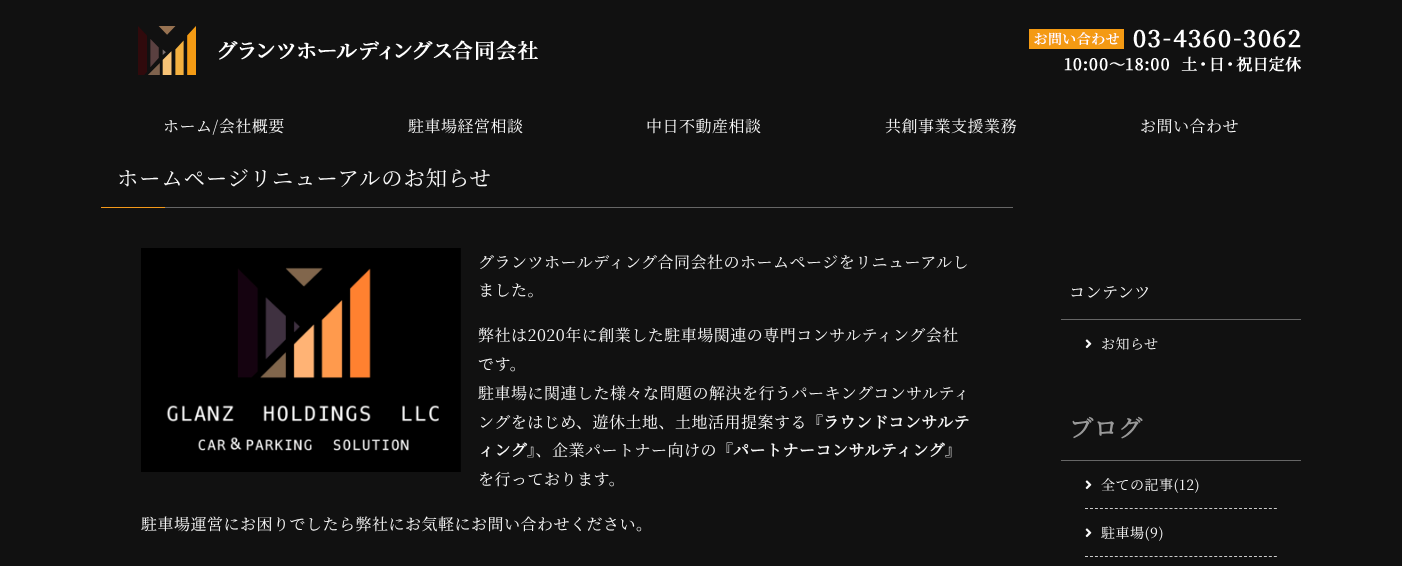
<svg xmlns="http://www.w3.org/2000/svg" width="1402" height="566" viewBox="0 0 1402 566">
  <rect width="100%" height="100%" fill="#111111"/>
  <image x="1029" y="29" width="272" height="43" href="img1.png"/>
  <image x="138" y="26" width="400" height="49" href="img2.png"/>
  <text x="163" y="132" font-family="Noto Serif JP" font-size="16" font-weight="200" letter-spacing="0.5" fill="#fafafa">ホーム/会社概要</text>
  <text x="408" y="132" font-family="Noto Serif JP" font-size="16" font-weight="200" letter-spacing="0.5" fill="#fafafa">駐車場経営相談</text>
  <text x="646" y="132" font-family="Noto Serif JP" font-size="16" font-weight="200" letter-spacing="0.5" fill="#fafafa">中日不動産相談</text>
  <text x="885" y="132" font-family="Noto Serif JP" font-size="16" font-weight="200" letter-spacing="0.5" fill="#fafafa">共創事業支援業務</text>
  <text x="1140" y="132" font-family="Noto Serif JP" font-size="16" font-weight="200" letter-spacing="0.5" fill="#fafafa">お問い合わせ</text>
  <rect x="165" y="207" width="848" height="1" fill="#666666"/>
  <text x="117" y="186" font-family="Noto Serif JP" font-size="21.25" font-weight="200" letter-spacing="1" fill="#fafafa">ホームページリニューアルのお知らせ</text>
  <rect x="101" y="207" width="64" height="1" fill="#f4991a"/>
  <image x="141" y="248" width="320" height="224" href="img3.png"/>
  <text x="478" y="268" font-family="Noto Serif JP" font-size="16" font-weight="200" letter-spacing="0.5" fill="#fafafa">グランツホールディング合同会社のホームページをリニューアルし</text>
  <text x="478" y="296" font-family="Noto Serif JP" font-size="16" font-weight="200" letter-spacing="0.5" fill="#fafafa">ました。</text>
  <text x="478" y="341" font-family="Noto Serif JP" font-size="16" font-weight="200" letter-spacing="0.5" fill="#fafafa">弊社は2020年に創業した駐車場関連の専門コンサルティング会社</text>
  <text x="478" y="370" font-family="Noto Serif JP" font-size="16" font-weight="200" letter-spacing="0.5" fill="#fafafa">です。</text>
  <text x="478" y="399" font-family="Noto Serif JP" font-size="16" font-weight="200" letter-spacing="0.5" fill="#fafafa">駐車場に関連した様々な問題の解決を行うパーキングコンサルティ</text>
  <text x="478" y="428" font-family="Noto Serif JP" font-size="16" font-weight="200" letter-spacing="0.5" fill="#fafafa">ングをはじめ、遊休土地、土地活用提案する『</text>
  <text x="823" y="428" font-family="Noto Serif JP" font-size="16" font-weight="bold" letter-spacing="0.5" fill="#fafafa">ラウンドコンサルテ</text>
  <text x="478" y="456" font-family="Noto Serif JP" font-size="16" font-weight="bold" letter-spacing="0.5" fill="#fafafa">ィング</text>
  <text x="527" y="456" font-family="Noto Serif JP" font-size="16" font-weight="200" letter-spacing="0.5" fill="#fafafa">』、企業パートナー向けの『</text>
  <text x="733" y="456" font-family="Noto Serif JP" font-size="16" font-weight="bold" letter-spacing="0.5" fill="#fafafa">パートナーコンサルティング</text>
  <text x="945" y="456" font-family="Noto Serif JP" font-size="16" font-weight="200" letter-spacing="0.5" fill="#fafafa">』</text>
  <text x="478" y="485" font-family="Noto Serif JP" font-size="16" font-weight="200" letter-spacing="0.5" fill="#fafafa">を行っております。</text>
  <text x="141" y="530" font-family="Noto Serif JP" font-size="16" font-weight="200" letter-spacing="0.5" fill="#fafafa">駐車場運営にお困りでしたら弊社にお気軽にお問い合わせください。</text>
  <rect x="1061" y="319" width="240" height="1" fill="#666666"/>
  <text x="1069" y="298" font-family="Noto Serif JP" font-size="16" font-weight="200" letter-spacing="0.5" fill="#fafafa">コンテンツ</text>
  <image x="1085" y="339" width="7" height="10" href="img4.png"/>
  <text x="1101" y="349" font-family="Noto Serif JP" font-size="14" font-weight="200" letter-spacing="0.5" fill="#fafafa">お知らせ</text>
  <rect x="1061" y="460" width="240" height="1" fill="#666666"/>
  <text x="1069" y="437" font-family="Noto Serif JP" font-size="24" font-weight="bold" letter-spacing="0.5" fill="#999999">ブログ</text>
  <path d="M1085 508.5H1277" fill="none" stroke="#cccccc" stroke-dasharray="3 1.97"/>
  <image x="1085" y="480" width="7" height="10" href="img4.png"/>
  <text x="1101" y="490" font-family="Noto Serif JP" font-size="14" font-weight="200" letter-spacing="0.5" fill="#fafafa">全ての記事(12)</text>
  <path d="M1085 556.5H1277" fill="none" stroke="#cccccc" stroke-dasharray="3 1.97"/>
  <image x="1085" y="528" width="7" height="10" href="img4.png"/>
  <text x="1101" y="538" font-family="Noto Serif JP" font-size="14" font-weight="200" letter-spacing="0.5" fill="#fafafa">駐車場(9)</text>
</svg>
